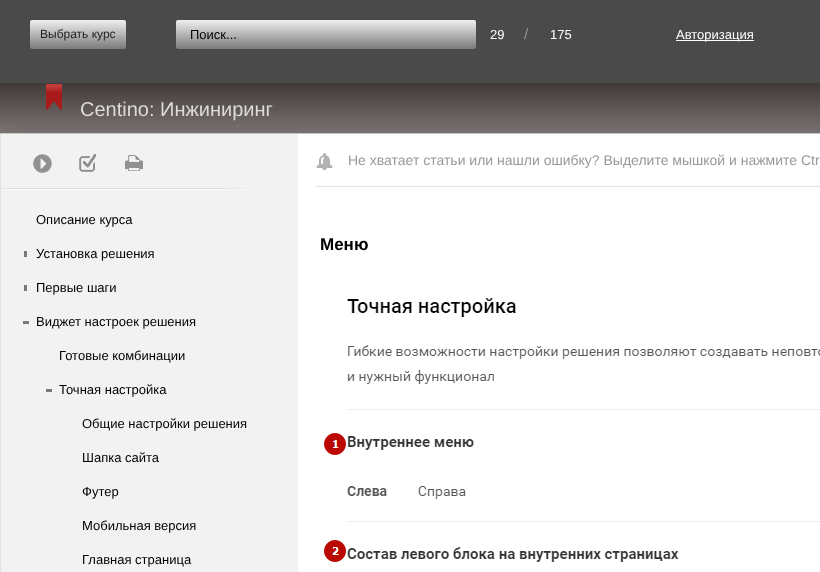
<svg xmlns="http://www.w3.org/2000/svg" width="820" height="572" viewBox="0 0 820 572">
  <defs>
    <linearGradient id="g1" gradientUnits="userSpaceOnUse" x1="78" y1="49" x2="78" y2="20"><stop offset="0" stop-color="#7a7a7a"/><stop offset="1" stop-color="#f0f0f0"/></linearGradient>
    <linearGradient id="g2" gradientUnits="userSpaceOnUse" x1="326" y1="49" x2="326" y2="20"><stop offset="0" stop-color="#7a7a7a"/><stop offset="1" stop-color="#f0f0f0"/></linearGradient>
    <linearGradient id="g3" gradientUnits="userSpaceOnUse" x1="410" y1="84" x2="410" y2="133"><stop offset="0" stop-color="#423939"/><stop offset="1" stop-color="#7e7575"/></linearGradient>
    <filter id="blur1" x="-50%" y="-200%" width="200%" height="500%"><feGaussianBlur stdDeviation="17"/></filter>
  </defs>
  <rect width="100%" height="100%" fill="#4a4a4a"/>
  <rect x="0" y="83" width="820" height="1" fill="#3d3d3d"/>
  <rect x="30" y="20" width="96" height="29" rx="2" fill="url(#g1)"/>
  <text x="40" y="38" font-family="Liberation Sans" font-size="12" fill="#222222">Выбрать курс</text>
  <rect x="176" y="20" width="300" height="29" rx="2" fill="url(#g2)"/>
  <text x="190" y="39" font-family="Liberation Sans" font-size="13" fill="#000000">Поиск...</text>
  <text x="490" y="39" font-family="Liberation Sans" font-size="13" fill="#ffffff">29</text>
  <text x="524" y="39" font-family="Liberation Sans" font-size="15" fill="#999999">/</text>
  <text x="550" y="39" font-family="Liberation Sans" font-size="13" fill="#ffffff">175</text>
  <rect x="676" y="40" width="78" height="1" fill="#ffffff"/>
  <text x="676" y="39" font-family="Liberation Sans" font-size="13" fill="#ffffff">Авторизация</text>
  <rect x="0" y="84" width="820" height="49" fill="url(#g3)"/>
  <rect x="0" y="133" width="820" height="1" fill="#cfcfcf"/>
  <image x="46" y="84" width="16" height="26" href="img1.png"/>
  <text x="80" y="116" font-family="Liberation Sans" font-size="20" fill="#dedede">Centino: Инжиниринг</text>
  <rect x="0" y="134" width="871" height="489" fill="#000000" fill-opacity="0.1" filter="url(#blur1)"/>
  <rect x="298" y="134" width="522" height="438" fill="#ffffff"/>
  <rect x="1" y="134" width="297" height="438" fill="#f2f2f2"/>
  <rect x="0" y="134" width="1" height="438" fill="#e2e2e2"/>
  <image x="316" y="153" width="17" height="17" href="img2.png"/>
  <text x="348" y="165" font-family="Liberation Sans" font-size="14" fill="#999999">Не хватает статьи или нашли ошибку? Выделите мышкой и нажмите Ctr</text>
  <rect x="316" y="186" width="504" height="1" fill="#e2e2e2"/>
  <rect x="1" y="188" width="228" height="1" fill="#dfdfdf"/>
  <rect x="1" y="189" width="228" height="1" fill="#fbfbfb"/>
  <image x="33" y="154" width="19" height="19" href="img3.png"/>
  <image x="79" y="154" width="17" height="18" href="img4.png"/>
  <image x="125" y="155" width="18" height="16" href="img5.png"/>
  <image x="229" y="188" width="29" height="2" href="img6.png"/>
  <text x="36" y="224" font-family="Liberation Sans" font-size="13" fill="#000000">Описание курса</text>
  <rect x="24" y="251" width="3" height="6" fill="#797979"/>
  <text x="36" y="258" font-family="Liberation Sans" font-size="13" fill="#000000">Установка решения</text>
  <rect x="24" y="285" width="3" height="6" fill="#797979"/>
  <text x="36" y="292" font-family="Liberation Sans" font-size="13" fill="#000000">Первые шаги</text>
  <rect x="23" y="321" width="6" height="3" fill="#797979"/>
  <text x="36" y="326" font-family="Liberation Sans" font-size="13" fill="#000000">Виджет настроек решения</text>
  <text x="59" y="360" font-family="Liberation Sans" font-size="13" fill="#000000">Готовые комбинации</text>
  <rect x="46" y="389" width="6" height="3" fill="#797979"/>
  <text x="59" y="394" font-family="Liberation Sans" font-size="13" fill="#000000">Точная настройка</text>
  <text x="82" y="428" font-family="Liberation Sans" font-size="13" fill="#000000">Общие настройки решения</text>
  <text x="82" y="462" font-family="Liberation Sans" font-size="13" fill="#000000">Шапка сайта</text>
  <text x="82" y="496" font-family="Liberation Sans" font-size="13" fill="#000000">Футер</text>
  <text x="82" y="530" font-family="Liberation Sans" font-size="13" fill="#000000">Мобильная версия</text>
  <text x="82" y="564" font-family="Liberation Sans" font-size="13" fill="#000000">Главная страница</text>
  <text x="320" y="250" font-family="Liberation Sans" font-size="17" font-weight="bold" fill="#000000">Меню</text>
  <image x="324" y="298" width="496" height="264" href="img7.png"/>
</svg>
